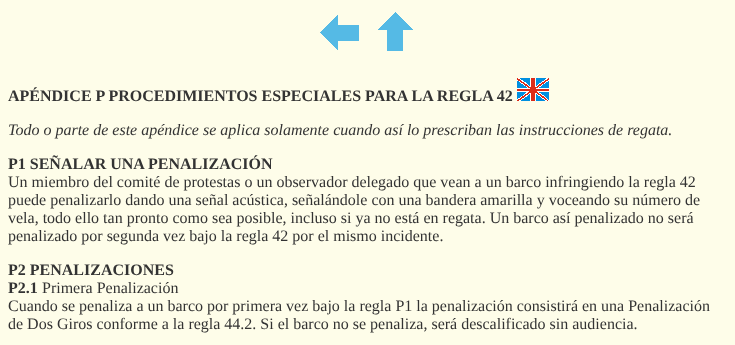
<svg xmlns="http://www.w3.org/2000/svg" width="735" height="345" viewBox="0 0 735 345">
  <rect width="100%" height="100%" fill="#fefde9"/>
  <image x="320" y="15" width="39" height="35" href="img1.png"/>
  <image x="378" y="12" width="35" height="39" href="img2.png"/>
  <text x="8" y="101" font-family="Liberation Serif" font-size="16" font-weight="bold" fill="#333333">APÉNDICE P PROCEDIMIENTOS ESPECIALES PARA LA REGLA 42</text>
  <image x="517" y="78" width="32" height="23" href="img3.png"/>
  <text x="8" y="135" font-family="Liberation Serif" font-size="16" font-style="italic" fill="#333333">Todo o parte de este apéndice se aplica solamente cuando así lo prescriban las instrucciones de regata.</text>
  <text x="8" y="169" font-family="Liberation Serif" font-size="16" font-weight="bold" fill="#333333">P1 SEÑALAR UNA PENALIZACIÓN</text>
  <text x="8" y="187" font-family="Liberation Serif" font-size="16" fill="#333333">Un miembro del comité de protestas o un observador delegado que vean a un barco infringiendo la regla 42</text>
  <text x="8" y="205" font-family="Liberation Serif" font-size="16" fill="#333333">puede penalizarlo dando una señal acústica, señalándole con una bandera amarilla y voceando su número de</text>
  <text x="8" y="223" font-family="Liberation Serif" font-size="16" fill="#333333">vela, todo ello tan pronto como sea posible, incluso si ya no está en regata. Un barco así penalizado no será</text>
  <text x="8" y="241" font-family="Liberation Serif" font-size="16" fill="#333333">penalizado por segunda vez bajo la regla 42 por el mismo incidente.</text>
  <text x="8" y="275" font-family="Liberation Serif" font-size="16" font-weight="bold" fill="#333333">P2 PENALIZACIONES</text>
  <text x="8" y="293" font-family="Liberation Serif" font-size="16" font-weight="bold" fill="#333333">P2.1</text>
  <text x="42" y="293" font-family="Liberation Serif" font-size="16" fill="#333333">Primera Penalización</text>
  <text x="8" y="311" font-family="Liberation Serif" font-size="16" fill="#333333">Cuando se penaliza a un barco por primera vez bajo la regla P1 la penalización consistirá en una Penalización</text>
  <text x="8" y="329" font-family="Liberation Serif" font-size="16" fill="#333333">de Dos Giros conforme a la regla 44.2. Si el barco no se penaliza, será descalificado sin audiencia.</text>
</svg>
